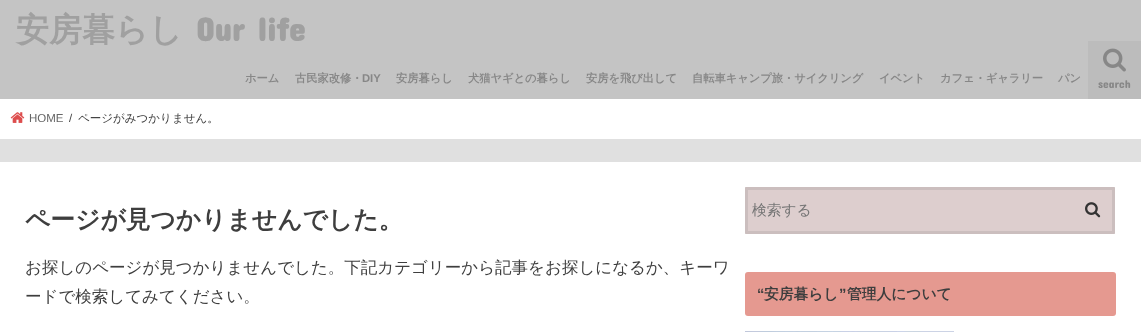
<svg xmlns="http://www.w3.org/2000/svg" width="1141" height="332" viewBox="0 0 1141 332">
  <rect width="100%" height="100%" fill="#e0e0e0"/>
  <rect x="0" y="0" width="1141" height="99" fill="#c4c4c4"/>
  <text x="16" y="41" font-family="WenQuanYi Zen Hei" font-size="33" font-weight="bold" fill="#a0a0a0">安房暮らし</text>
  <text x="196" y="41" font-family="Concert One" font-size="33" font-weight="bold" fill="#a0a0a0">Our life</text>
  <text x="245" y="82" font-family="WenQuanYi Zen Hei" font-size="11.25" font-weight="bold" fill="#878787">ホーム</text>
  <text x="295" y="82" font-family="WenQuanYi Zen Hei" font-size="11.25" font-weight="bold" fill="#878787">古民家改修・</text>
  <text x="362" y="82" font-family="Liberation Sans" font-size="11.25" font-weight="bold" fill="#878787">DIY</text>
  <text x="396" y="82" font-family="WenQuanYi Zen Hei" font-size="11.25" font-weight="bold" fill="#878787">安房暮らし</text>
  <text x="468" y="82" font-family="WenQuanYi Zen Hei" font-size="11.25" font-weight="bold" fill="#878787">犬猫ヤギとの暮らし</text>
  <text x="586" y="82" font-family="WenQuanYi Zen Hei" font-size="11.25" font-weight="bold" fill="#878787">安房を飛び出して</text>
  <text x="692" y="82" font-family="WenQuanYi Zen Hei" font-size="11.25" font-weight="bold" fill="#878787">自転車キャンプ旅・サイクリング</text>
  <text x="879" y="82" font-family="WenQuanYi Zen Hei" font-size="11.25" font-weight="bold" fill="#878787">イベント</text>
  <text x="940" y="82" font-family="WenQuanYi Zen Hei" font-size="11.25" font-weight="bold" fill="#878787">カフェ・ギャラリー</text>
  <text x="1058" y="82" font-family="WenQuanYi Zen Hei" font-size="11.25" font-weight="bold" fill="#878787">パン</text>
  <rect x="1088" y="41" width="53" height="58" fill="#bcbcbc"/>
  <image x="1103" y="48" width="23" height="24" href="img1.png"/>
  <text x="1098" y="88" font-family="Concert One" font-size="11.5" fill="#878787">search</text>
  <rect x="0" y="99" width="1141" height="40" fill="#ffffff"/>
  <image x="10" y="112" width="15" height="11" href="img2.png"/>
  <text x="29" y="122" font-family="Liberation Sans" font-size="11.5" fill="#666666">HOME</text>
  <text x="69" y="122" font-family="Liberation Sans" font-size="11.5" fill="#3e3e3e">/</text>
  <text x="78" y="122" font-family="WenQuanYi Zen Hei" font-size="11.5" font-weight="500" fill="#3e3e3e">ページがみつかりません。</text>
  <rect x="0" y="162" width="1141" height="170" fill="#ffffff"/>
  <text x="25" y="228" font-family="WenQuanYi Zen Hei" font-size="24.75" font-weight="bold" fill="#3e3e3e">ページが見つかりませんでした。</text>
  <text x="25" y="273" font-family="WenQuanYi Zen Hei" font-size="16.5" font-weight="500" fill="#3e3e3e">お探しのページが見つかりませんでした。下記カテゴリーから記事をお探しになるか、キーワ</text>
  <text x="25" y="302" font-family="WenQuanYi Zen Hei" font-size="16.5" font-weight="500" fill="#3e3e3e">ードで検索してみてください。</text>
  <rect x="745" y="187" width="370" height="47" rx="1" fill="#ddcece"/>
  <path d="M746.5 188.5H1113.5V232.5H746.5Z" fill="none" stroke="#333333" stroke-opacity="0.1" stroke-width="3"/>
  <text x="752" y="215" font-family="WenQuanYi Zen Hei" font-size="14.75" font-weight="500" fill="#757575">検索する</text>
  <image x="1085" y="202" width="16" height="16" href="img3.png"/>
  <rect x="745" y="272" width="371" height="44" rx="3" fill="#e59990"/>
  <text x="757" y="299" font-family="Liberation Sans" font-size="14.75" font-weight="bold" fill="#3e3e3e">“</text>
  <text x="764" y="299" font-family="WenQuanYi Zen Hei" font-size="14.75" font-weight="bold" fill="#3e3e3e">安房暮らし</text>
  <text x="839" y="299" font-family="Liberation Sans" font-size="14.75" font-weight="bold" fill="#3e3e3e">”</text>
  <text x="847" y="299" font-family="WenQuanYi Zen Hei" font-size="14.75" font-weight="bold" fill="#3e3e3e">管理人について</text>
  <image x="745" y="331" width="209" height="1" href="img4.png"/>
</svg>
